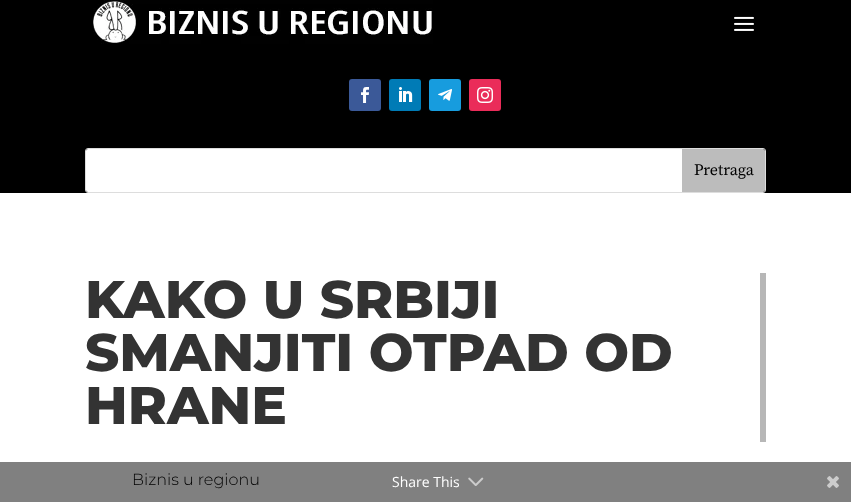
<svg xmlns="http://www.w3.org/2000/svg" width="851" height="502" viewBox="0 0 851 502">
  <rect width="100%" height="100%" fill="#ffffff"/>
  <rect x="0" y="462" width="851" height="40" fill="#808080"/>
  <rect x="0" y="0" width="851" height="193" fill="#000000"/>
  <image x="93" y="0" width="340" height="44" href="img1.png"/>
  <image x="734" y="16" width="20" height="15" href="img2.png"/>
  <rect x="349" y="79" width="32" height="32" rx="3" fill="#3b5998"/>
  <image x="361" y="87" width="8" height="16" href="img3.png"/>
  <rect x="389" y="79" width="32" height="32" rx="3" fill="#007bb6"/>
  <image x="399" y="87" width="14" height="15" href="img4.png"/>
  <rect x="429" y="79" width="32" height="32" rx="3" fill="#179cde"/>
  <image x="438" y="89" width="14" height="12" href="img5.png"/>
  <rect x="469" y="79" width="32" height="32" rx="3" fill="#ea2c59"/>
  <image x="477" y="87" width="16" height="16" href="img6.png"/>
  <rect x="85.5" y="148.5" width="680" height="44" rx="2.5" fill="none" stroke="#dddddd"/>
  <path d="M88 149H682V192H88C87 192 86 191 86 190V151C86 150 87 149 88 149Z" fill="#ffffff"/>
  <path d="M682 149H763C764 149 765 150 765 151V190C765 191 764 192 763 192H682Z" fill="#bcbcbc"/>
  <text x="694" y="175" font-family="Source Serif Pro" font-size="16" fill="#000000">Pretraga</text>
  <rect x="760" y="273" width="6" height="169" fill="#b7b7b7"/>
  <text x="85" y="318" font-family="Montserrat" font-size="53" font-weight="100" fill="#333333">KAKO U SRBIJI</text>
  <text x="85" y="371" font-family="Montserrat" font-size="53" font-weight="100" fill="#333333">SMANJITI OTPAD OD</text>
  <text x="85" y="424" font-family="Montserrat" font-size="53" font-weight="100" fill="#333333">HRANE</text>
  <text x="132" y="485" font-family="'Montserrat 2'" font-size="16" font-weight="100" fill="#000000">Biznis u regionu</text>
  <text x="392" y="487" font-family="Open Sans" font-size="14" fill="#ffffff">Share This</text>
  <image x="468" y="477" width="16" height="9" href="img7.png"/>
  <image x="827" y="476" width="12" height="12" href="img8.png"/>
</svg>
